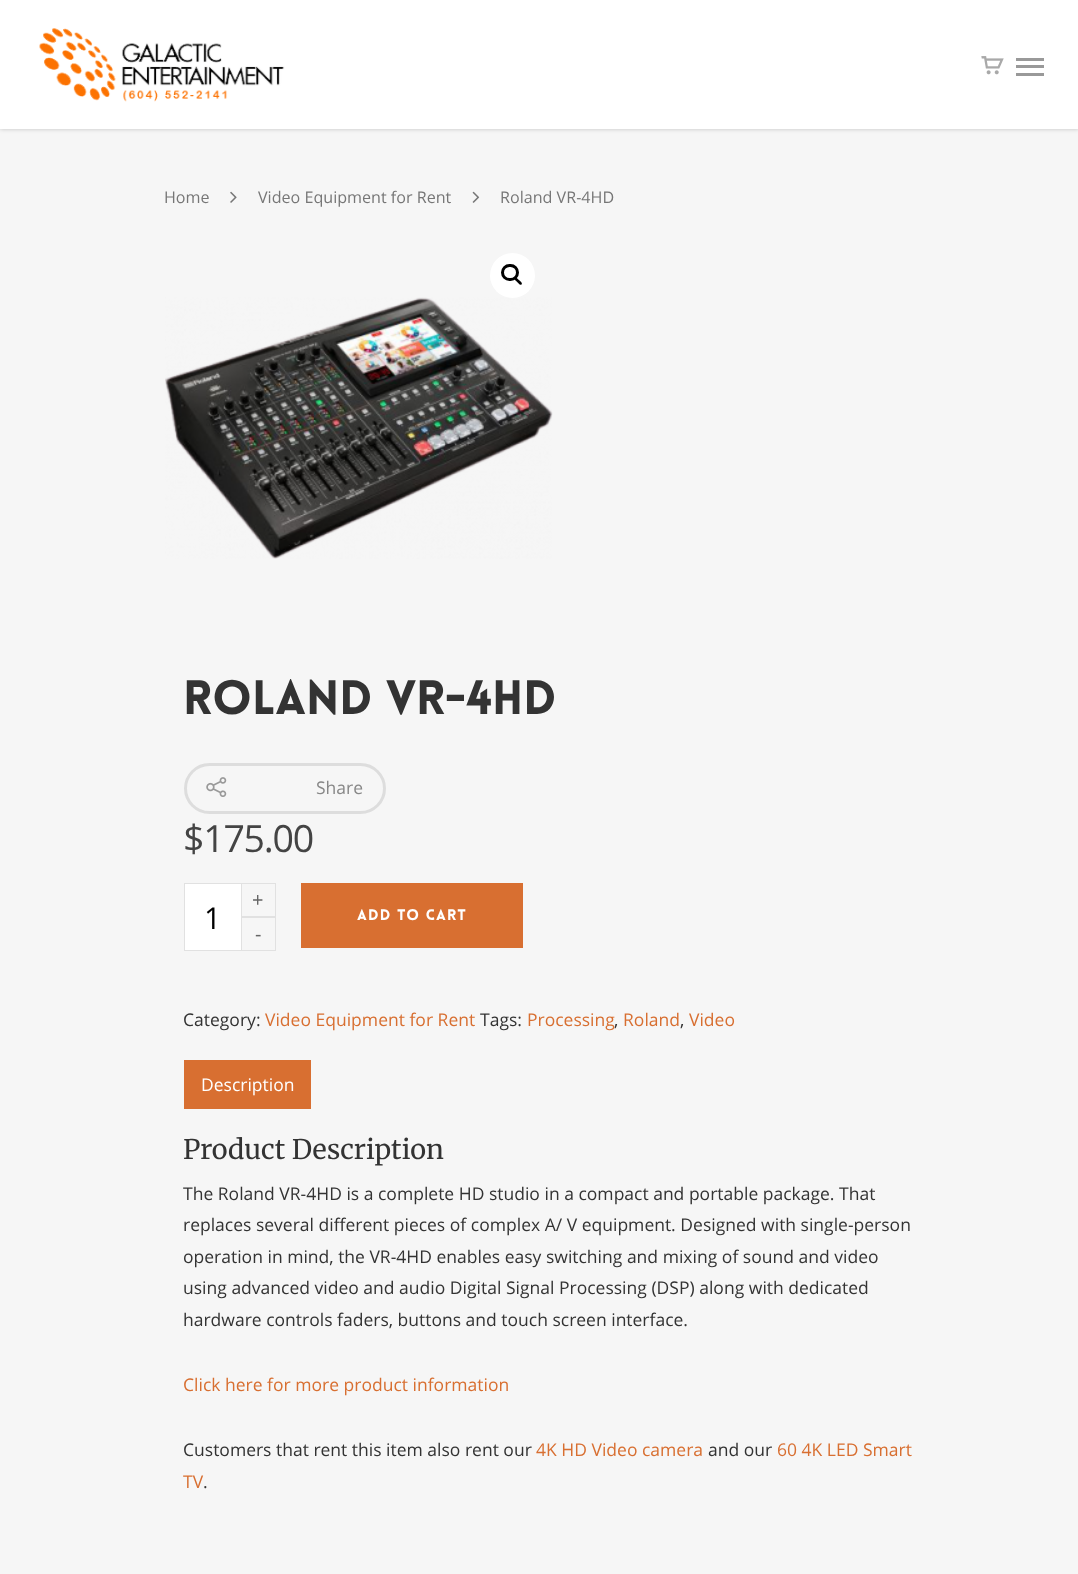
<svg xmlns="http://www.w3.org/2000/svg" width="1078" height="1574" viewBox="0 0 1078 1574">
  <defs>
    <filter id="blur1" x="-50%" y="-200%" width="200%" height="500%"><feGaussianBlur stdDeviation="2"/></filter>
  </defs>
  <rect width="100%" height="100%" fill="#f6f6f6"/>
  <rect x="0" y="0" width="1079" height="129" fill="#000000" fill-opacity="0.22" filter="url(#blur1)"/>
  <rect x="0" y="0" width="1078" height="129" fill="#ffffff"/>
  <image x="39" y="28" width="246" height="74" href="img1.png"/>
  <image x="981" y="56" width="23" height="19" href="img2.png"/>
  <rect x="1016" y="58" width="28" height="3" fill="#999999"/>
  <rect x="1016" y="73" width="28" height="3" fill="#999999"/>
  <rect x="1016" y="65" width="28" height="3" fill="#999999"/>
  <text x="164" y="203" font-family="Open Sans" font-size="16.1" fill="#767676">Home</text>
  <image x="230" y="191" width="7" height="12" href="img3.png"/>
  <text x="258" y="203" font-family="Open Sans" font-size="16.1" fill="#767676">Video Equipment for Rent</text>
  <image x="472" y="191" width="8" height="12" href="img4.png"/>
  <text x="500" y="203" font-family="Open Sans" font-size="16.1" fill="#767676">Roland VR-4HD</text>
  <image x="165" y="297" width="388" height="262" href="img5.png"/>
  <circle cx="512.5" cy="275.5" r="22.5" fill="#ffffff"/>
  <rect x="502.5" y="265.5" width="15" height="14" rx="7" fill="none" stroke="#000000" stroke-width="3"/>
  <path d="M514.5 277.5C516 276 518 279.5 519 280C520 281 523 283 521.5 284.5C520 286 518 282.5 517 282C516.5 281 513 279 514.5 277.5Z" fill="#000000"/>
  <text x="183" y="714" font-family="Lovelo" font-size="47.25" font-weight="900" fill="#333333">Roland VR-4HD</text>
  <rect x="185.5" y="764.5" width="199" height="48" rx="24" fill="none" stroke="#dddddd" stroke-width="3"/>
  <image x="206" y="777" width="21" height="20" href="img6.png"/>
  <text x="316" y="794" font-family="Open Sans" font-size="17.5" fill="#888888">Share</text>
  <text x="183" y="852" font-family="Open Sans" font-size="37.5" letter-spacing="-1.25" fill="#444444">$175.00</text>
  <rect x="241.5" y="916.5" width="34" height="34" fill="none" stroke="#e1e1e1"/>
  <rect x="241.5" y="883.5" width="34" height="34" fill="none" stroke="#e1e1e1"/>
  <text x="252" y="907" font-family="Open Sans" font-size="20" fill="#666666">+</text>
  <rect x="185" y="884" width="56" height="66" fill="#ffffff"/>
  <rect x="184" y="883" width="57" height="1" fill="#e1e1e1"/>
  <rect x="184" y="950" width="57" height="1" fill="#e1e1e1"/>
  <rect x="184" y="883" width="1" height="68" fill="#e1e1e1"/>
  <text x="204" y="929" font-family="Open Sans" font-size="30" fill="#000000">1</text>
  <text x="255" y="941" font-family="Open Sans" font-size="20" fill="#666666">-</text>
  <rect x="301" y="883" width="222" height="65" fill="#d86f31"/>
  <text x="357" y="920" font-family="Lovelo" font-size="15" font-weight="900" letter-spacing="1.25" fill="#ffffff">ADD TO CART</text>
  <text x="183" y="1026" font-family="Open Sans" font-size="17.5" fill="#333333">Category:</text>
  <text x="265" y="1026" font-family="Open Sans" font-size="17.5" fill="#d86f31">Video Equipment for Rent</text>
  <text x="480" y="1026" font-family="Open Sans" font-size="17.5" fill="#333333">Tags:</text>
  <text x="527" y="1026" font-family="Open Sans" font-size="17.5" fill="#d86f31">Processing</text>
  <text x="614" y="1026" font-family="Open Sans" font-size="17.5" fill="#333333">,</text>
  <text x="623" y="1026" font-family="Open Sans" font-size="17.5" fill="#d86f31">Roland</text>
  <text x="680" y="1026" font-family="Open Sans" font-size="17.5" fill="#333333">,</text>
  <text x="689" y="1026" font-family="Open Sans" font-size="17.5" fill="#d86f31">Video</text>
  <rect x="184" y="1060" width="127" height="49" fill="#d86f31"/>
  <text x="201" y="1091" font-family="Open Sans" font-size="17.5" fill="#ffffff">Description</text>
  <text x="183" y="1159" font-family="Merriweather" font-size="27" font-weight="300" fill="#333333">Product Description</text>
  <text x="183" y="1200" font-family="Open Sans" font-size="17.5" fill="#333333">The Roland VR-4HD is a complete HD studio in a compact and portable package. That</text>
  <text x="183" y="1231" font-family="Open Sans" font-size="17.5" fill="#333333">replaces several different pieces of complex A/ V equipment. Designed with single-person</text>
  <text x="183" y="1263" font-family="Open Sans" font-size="17.5" fill="#333333">operation in mind, the VR-4HD enables easy switching and mixing of sound and video</text>
  <text x="183" y="1294" font-family="Open Sans" font-size="17.5" fill="#333333">using advanced video and audio Digital Signal Processing (DSP) along with dedicated</text>
  <text x="183" y="1326" font-family="Open Sans" font-size="17.5" fill="#333333">hardware controls faders, buttons and touch screen interface.</text>
  <text x="183" y="1391" font-family="Open Sans" font-size="17.5" fill="#d86f31">Click here for more product information</text>
  <text x="183" y="1456" font-family="Open Sans" font-size="17.5" fill="#333333">Customers that rent this item also rent our</text>
  <text x="536" y="1456" font-family="Open Sans" font-size="17.5" fill="#d86f31">4K HD Video camera</text>
  <text x="708" y="1456" font-family="Open Sans" font-size="17.5" fill="#333333">and our</text>
  <text x="777" y="1456" font-family="Open Sans" font-size="17.5" fill="#d86f31">60 4K LED Smart</text>
  <text x="183" y="1488" font-family="Open Sans" font-size="17.5" fill="#d86f31">TV</text>
  <text x="203" y="1488" font-family="Open Sans" font-size="17.5" fill="#333333">.</text>
</svg>
